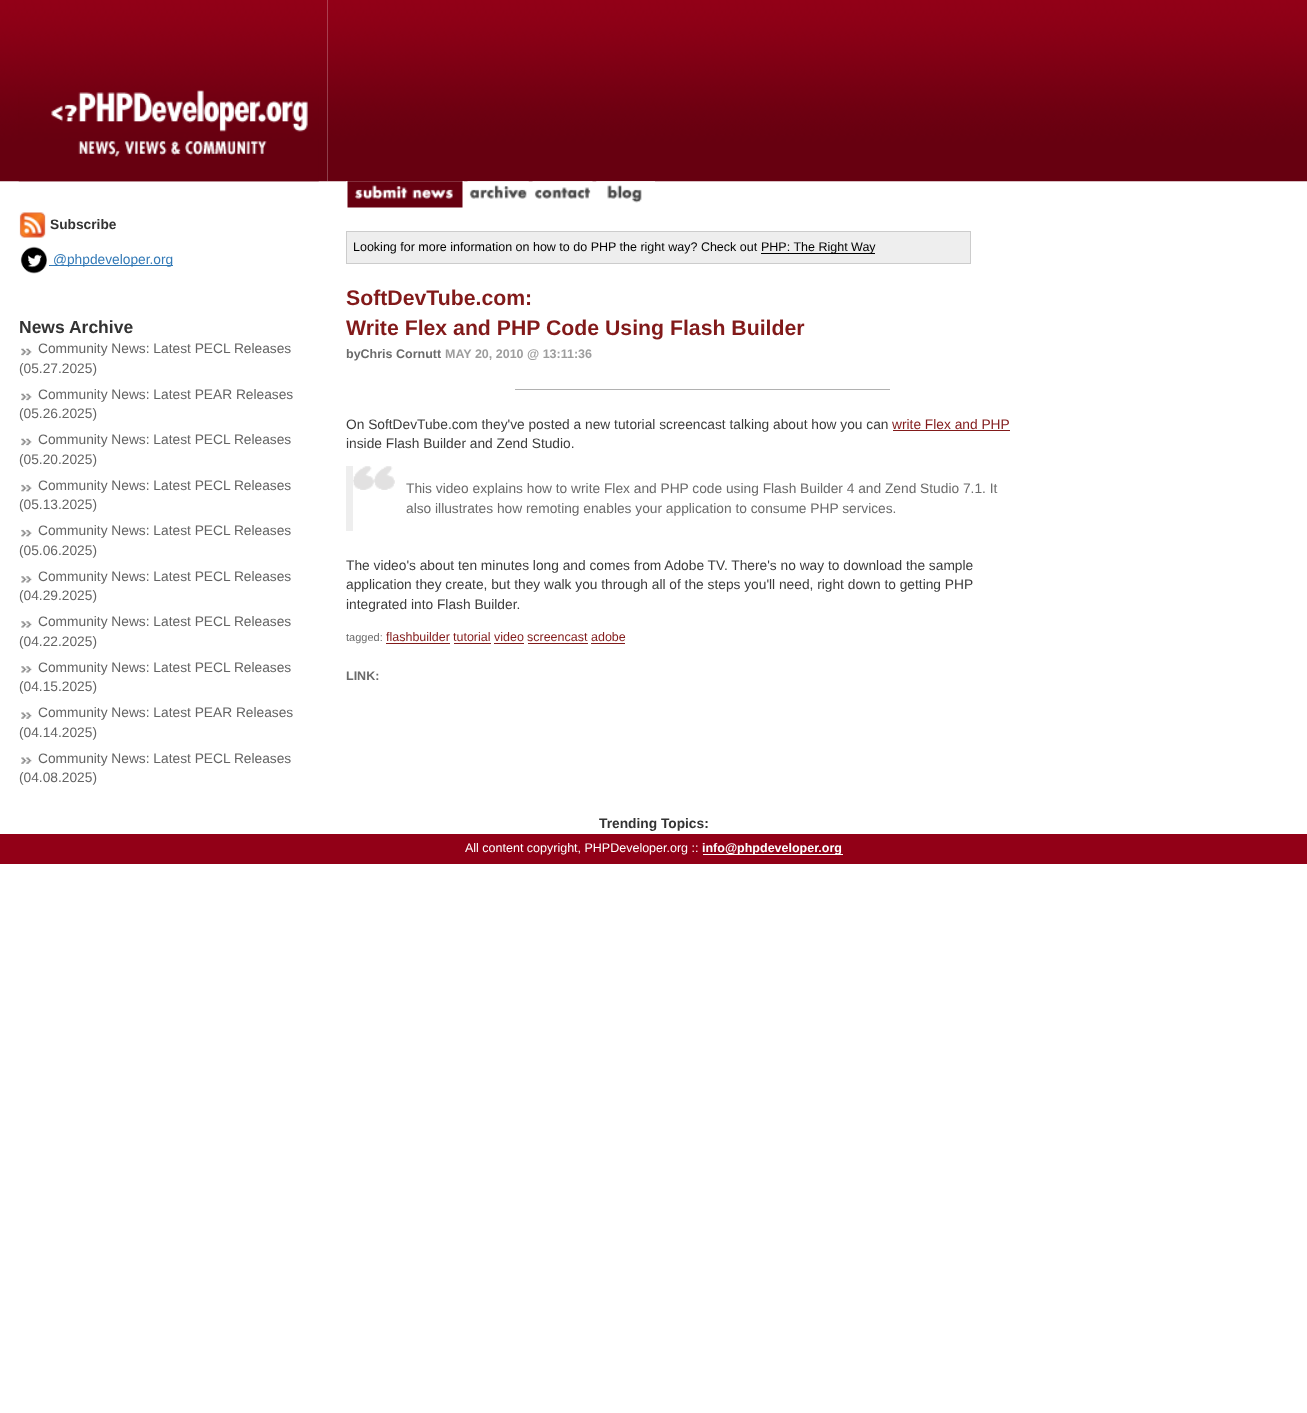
<svg xmlns="http://www.w3.org/2000/svg" width="1307" height="1413" viewBox="0 0 1307 1413">
  <rect width="100%" height="100%" fill="#ffffff"/>
  <image x="0" y="0" width="328" height="182" href="img1.png"/>
  <image x="18" y="90" width="301" height="92" href="img2.png"/>
  <image x="327" y="0" width="980" height="182" href="img3.png"/>
  <image x="346" y="181" width="118" height="27" href="img4.png"/>
  <image x="467" y="181" width="62" height="18" href="img5.png"/>
  <image x="532" y="181" width="61" height="18" href="img6.png"/>
  <image x="596" y="181" width="59" height="22" href="img7.png"/>
  <image x="19" y="212" width="27" height="26" href="img8.png"/>
  <text x="50" y="229" font-family="Liberation Sans" font-size="13.75" font-weight="bold" fill="#333333">Subscribe</text>
  <image x="20" y="246" width="27" height="28" href="img9.png"/>
  <rect x="49" y="265" width="124" height="1" fill="#337ab7"/>
  <text x="53" y="264" font-family="Liberation Sans" font-size="13.75" fill="#337ab7">@phpdeveloper.org</text>
  <text x="19" y="333" font-family="Liberation Sans" font-size="17.5" font-weight="bold" fill="#333333">News Archive</text>
  <image x="21" y="348" width="11" height="8" href="img10.png"/>
  <text x="38" y="353" font-family="Liberation Sans" font-size="13.75" fill="#646464">Community News: Latest PECL Releases</text>
  <text x="19" y="373" font-family="Liberation Sans" font-size="13.75" fill="#646464">(05.27.2025)</text>
  <image x="21" y="393" width="11" height="8" href="img10.png"/>
  <text x="38" y="399" font-family="Liberation Sans" font-size="13.75" fill="#646464">Community News: Latest PEAR Releases</text>
  <text x="19" y="418" font-family="Liberation Sans" font-size="13.75" fill="#646464">(05.26.2025)</text>
  <image x="21" y="438" width="11" height="8" href="img10.png"/>
  <text x="38" y="444" font-family="Liberation Sans" font-size="13.75" fill="#646464">Community News: Latest PECL Releases</text>
  <text x="19" y="464" font-family="Liberation Sans" font-size="13.75" fill="#646464">(05.20.2025)</text>
  <image x="21" y="484" width="11" height="8" href="img11.png"/>
  <text x="38" y="490" font-family="Liberation Sans" font-size="13.75" fill="#646464">Community News: Latest PECL Releases</text>
  <text x="19" y="509" font-family="Liberation Sans" font-size="13.75" fill="#646464">(05.13.2025)</text>
  <image x="21" y="529" width="11" height="8" href="img11.png"/>
  <text x="38" y="535" font-family="Liberation Sans" font-size="13.75" fill="#646464">Community News: Latest PECL Releases</text>
  <text x="19" y="555" font-family="Liberation Sans" font-size="13.75" fill="#646464">(05.06.2025)</text>
  <image x="21" y="576" width="11" height="7" href="img12.png"/>
  <text x="38" y="581" font-family="Liberation Sans" font-size="13.75" fill="#646464">Community News: Latest PECL Releases</text>
  <text x="19" y="600" font-family="Liberation Sans" font-size="13.75" fill="#646464">(04.29.2025)</text>
  <image x="21" y="621" width="11" height="7" href="img12.png"/>
  <text x="38" y="626" font-family="Liberation Sans" font-size="13.75" fill="#646464">Community News: Latest PECL Releases</text>
  <text x="19" y="646" font-family="Liberation Sans" font-size="13.75" fill="#646464">(04.22.2025)</text>
  <image x="21" y="666" width="11" height="7" href="img12.png"/>
  <text x="38" y="672" font-family="Liberation Sans" font-size="13.75" fill="#646464">Community News: Latest PECL Releases</text>
  <text x="19" y="691" font-family="Liberation Sans" font-size="13.75" fill="#646464">(04.15.2025)</text>
  <image x="21" y="712" width="11" height="7" href="img13.png"/>
  <text x="38" y="717" font-family="Liberation Sans" font-size="13.75" fill="#646464">Community News: Latest PEAR Releases</text>
  <text x="19" y="737" font-family="Liberation Sans" font-size="13.75" fill="#646464">(04.14.2025)</text>
  <image x="21" y="757" width="11" height="7" href="img13.png"/>
  <text x="38" y="763" font-family="Liberation Sans" font-size="13.75" fill="#646464">Community News: Latest PECL Releases</text>
  <text x="19" y="782" font-family="Liberation Sans" font-size="13.75" fill="#646464">(04.08.2025)</text>
  <rect x="346.5" y="231.5" width="624" height="32" fill="#eeeeee" stroke="#cccccc"/>
  <text x="353" y="251" font-family="Liberation Sans" font-size="12.5" fill="#000000">Looking for more information on how to do PHP the right way? Check out</text>
  <rect x="761" y="253" width="114" height="1" fill="#000000"/>
  <text x="761" y="251" font-family="Liberation Sans" font-size="12.5" fill="#000000">PHP: The Right Way</text>
  <text x="346" y="305" font-family="Liberation Sans" font-size="21.25" font-weight="bold" fill="#821a1a">SoftDevTube.com:</text>
  <text x="346" y="335" font-family="Liberation Sans" font-size="21.25" font-weight="bold" fill="#821a1a">Write Flex and PHP Code Using Flash Builder</text>
  <text x="346" y="358" font-family="Liberation Sans" font-size="12.5" font-weight="bold" fill="#6b6b6b">byChris Cornutt</text>
  <text x="445" y="358" font-family="Liberation Sans" font-size="12.5" font-weight="bold" fill="#9d9d9d">MAY 20, 2010 @ 13:11:36</text>
  <rect x="515" y="389" width="375" height="1" fill="#b1b1b1"/>
  <text x="346" y="429" font-family="Liberation Sans" font-size="13.75" fill="#3c3c3c">On SoftDevTube.com they've posted a new tutorial screencast talking about how you can</text>
  <text x="892" y="429" font-family="Liberation Sans" font-size="13.75" fill="#821a1a">write Flex and PHP</text>
  <rect x="893" y="430" width="117" height="1" fill="#821a1a"/>
  <text x="346" y="448" font-family="Liberation Sans" font-size="13.75" fill="#3c3c3c">inside Flash Builder and Zend Studio.</text>
  <image x="353" y="466" width="42" height="24" href="img14.png"/>
  <rect x="346" y="466" width="7" height="65" fill="#eeeeee"/>
  <text x="406" y="493" font-family="Liberation Sans" font-size="13.75" fill="#6b6b6b">This video explains how to write Flex and PHP code using Flash Builder 4 and Zend Studio 7.1. It</text>
  <text x="406" y="513" font-family="Liberation Sans" font-size="13.75" fill="#6b6b6b">also illustrates how remoting enables your application to consume PHP services.</text>
  <text x="346" y="570" font-family="Liberation Sans" font-size="13.75" fill="#3c3c3c">The video's about ten minutes long and comes from Adobe TV. There's no way to download the sample</text>
  <text x="346" y="589" font-family="Liberation Sans" font-size="13.75" fill="#3c3c3c">application they create, but they walk you through all of the steps you'll need, right down to getting PHP</text>
  <text x="346" y="609" font-family="Liberation Sans" font-size="13.75" fill="#3c3c3c">integrated into Flash Builder.</text>
  <text x="346" y="641" font-family="Liberation Sans" font-size="11" fill="#6b6b6b">tagged:</text>
  <rect x="386" y="643" width="64" height="1" fill="#821a1a"/>
  <text x="386" y="641" font-family="Liberation Sans" font-size="12.5" fill="#821a1a">flashbuilder</text>
  <text x="453" y="641" font-family="Liberation Sans" font-size="12.5" fill="#821a1a">tutorial</text>
  <rect x="454" y="643" width="37" height="1" fill="#821a1a"/>
  <text x="494" y="641" font-family="Liberation Sans" font-size="12.5" fill="#821a1a">video</text>
  <rect x="494" y="643" width="30" height="1" fill="#821a1a"/>
  <text x="527" y="641" font-family="Liberation Sans" font-size="12.5" fill="#821a1a">screencast</text>
  <rect x="528" y="643" width="60" height="1" fill="#821a1a"/>
  <text x="591" y="641" font-family="Liberation Sans" font-size="12.5" fill="#821a1a">adobe</text>
  <rect x="591" y="643" width="34" height="1" fill="#821a1a"/>
  <text x="346" y="680" font-family="Liberation Sans" font-size="12.5" font-weight="bold" fill="#6b6b6b">LINK:</text>
  <text x="599" y="828" font-family="Liberation Sans" font-size="13.75" font-weight="bold" fill="#333333">Trending Topics:</text>
  <rect x="0" y="834" width="1307" height="30" fill="#920017"/>
  <text x="465" y="852" font-family="Liberation Sans" font-size="12.5" fill="#ffffff">All content copyright, PHPDeveloper.org ::</text>
  <rect x="703" y="854" width="140" height="1" fill="#ffffff"/>
  <text x="702" y="852" font-family="Liberation Sans" font-size="12.5" font-weight="bold" fill="#ffffff">info@phpdeveloper.org</text>
</svg>
